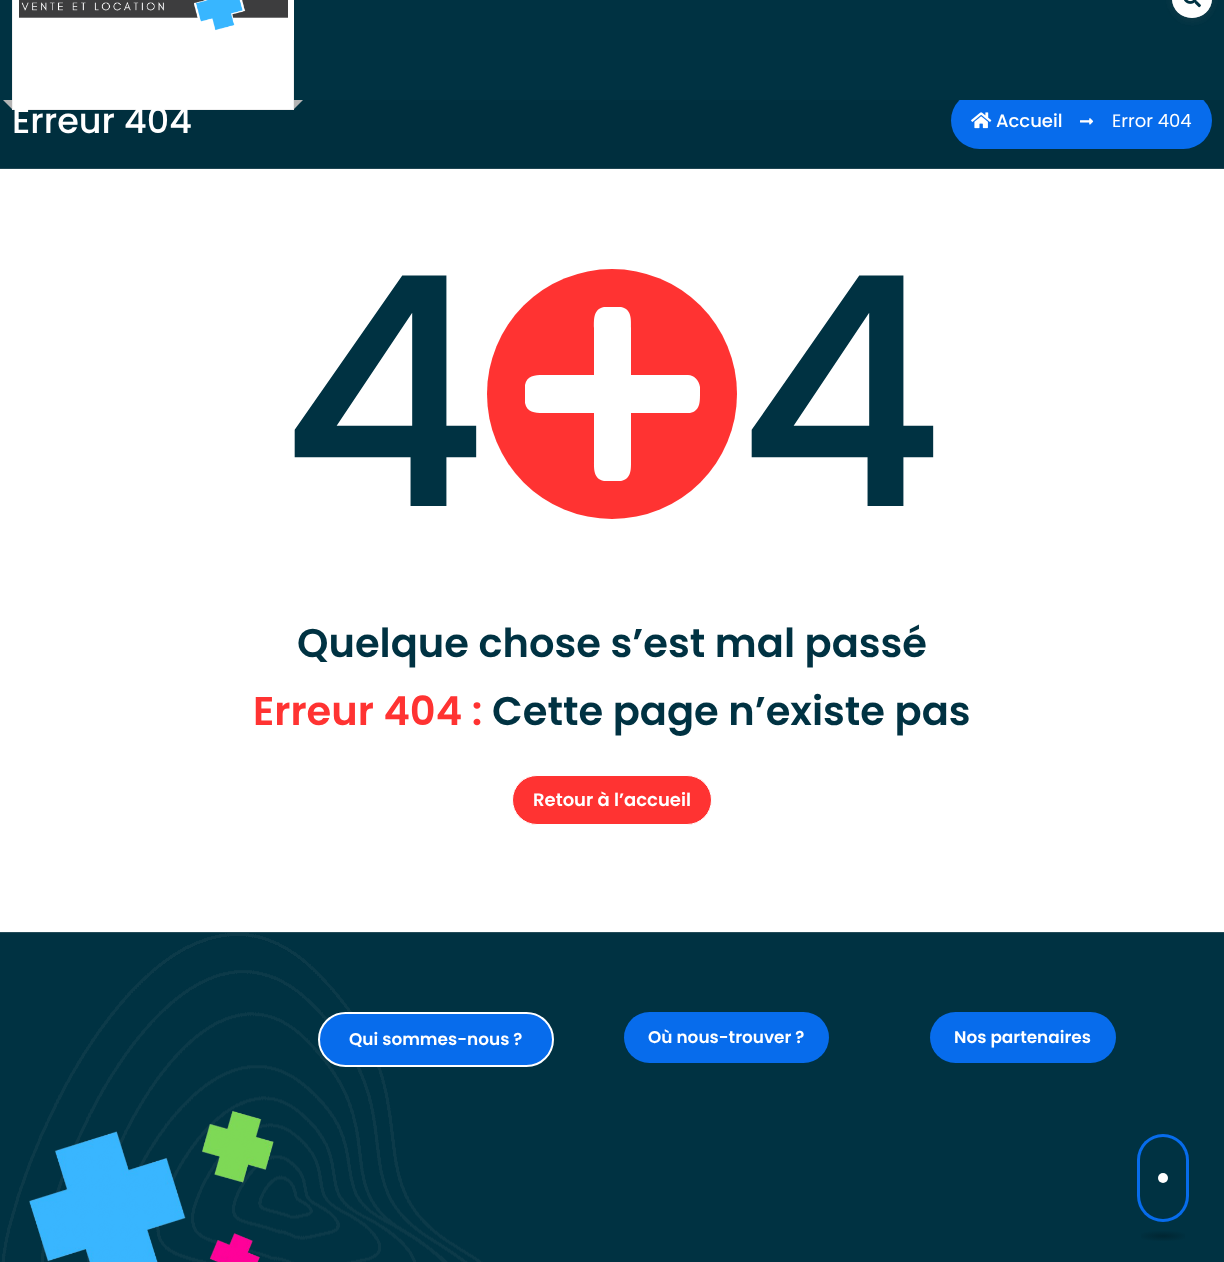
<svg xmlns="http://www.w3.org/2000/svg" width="1224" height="1262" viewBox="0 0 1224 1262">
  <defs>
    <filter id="blur1" x="-50%" y="-200%" width="200%" height="500%"><feGaussianBlur stdDeviation="4"/></filter>
    <radialGradient id="g1" gradientUnits="userSpaceOnUse" cx="0" cy="0" r="1" gradientTransform="matrix(33 0 0 7.1 1163 1236)"><stop offset="0" stop-color="#002632"/><stop offset="0.8" stop-color="#003242"/></radialGradient>
  </defs>
  <rect width="100%" height="100%" fill="#ffffff"/>
  <rect x="0" y="100" width="1224" height="68" fill="#002f3e"/>
  <path d="M3 100H13V110Z" fill="#b4b4b4"/>
  <path d="M293 110V100H303Z" fill="#b4b4b4"/>
  <rect x="951" y="92" width="261" height="57" rx="28.5" fill="#076cec"/>
  <rect x="0" y="0" width="1224" height="100" fill="#003242"/>
  <rect x="12.5" y="-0.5" width="281" height="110" fill="#ffffff" stroke="#f0f0f0"/>
  <image x="19" y="0" width="275" height="40" href="img1.png"/>
  <rect x="1172" y="-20" width="40" height="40" rx="20" fill="#636363" fill-opacity="0.2" filter="url(#blur1)"/>
  <rect x="1172" y="-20" width="40" height="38" rx="20" fill="#ffffff"/>
  <rect x="1172.5" y="-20.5" width="39" height="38" rx="19.5" fill="none" stroke="#ffffff" stroke-opacity="0.5"/>
  <image x="1184" y="0" width="17" height="8" href="img2.png"/>
  <rect x="0" y="168" width="1224" height="1" fill="#204653"/>
  <text x="12" y="133" font-family="Poppins" font-size="35" font-weight="500" fill="#ffffff">Erreur 404</text>
  <image x="971" y="112" width="21" height="17" href="img3.png"/>
  <text x="996" y="127" font-family="Poppins" font-size="18" font-weight="500" fill="#ffffff">Accueil</text>
  <image x="1080" y="118" width="14" height="7" href="img4.png"/>
  <text x="1112" y="127" font-family="Poppins" font-size="18" fill="#ffffff">Error 404</text>
  <text x="280" y="506" font-family="Poppins" font-size="320" font-weight="500" fill="#003242">4</text>
  <circle cx="612" cy="394" r="125" fill="#ff3332"/>
  <path d="M688 375C694 375 699 380 700 387V394C700 402 700 411 690 413H631V460C631 468 632 479 621 481H604C593 479 594 468 594 460V413H547C538 413 527 414 525 403V385C527 374 538 375 547 375H594V328C594 320 593 309 604 307H621C632 309 631 320 631 328V375Z" fill="#ffffff"/>
  <text x="737" y="506" font-family="Poppins" font-size="320" font-weight="500" fill="#003242">4</text>
  <text x="297" y="657" font-family="Poppins" font-size="40" font-weight="600" fill="#003242">Quelque chose s’est mal passé</text>
  <text x="253" y="725" font-family="Poppins" font-size="40" font-weight="600" fill="#ff3332">Erreur 404 :</text>
  <text x="492" y="725" font-family="Poppins" font-size="40" font-weight="600" fill="#003242">Cette page n’existe pas</text>
  <rect x="512.5" y="775.5" width="199" height="49" rx="24.5" fill="#ff3332" stroke="#ffffff"/>
  <text x="533" y="806" font-family="Poppins" font-size="18" font-weight="600" fill="#ffffff">Retour à l’accueil</text>
  <rect x="0" y="933" width="1224" height="329" fill="#003242"/>
  <rect x="0" y="932" width="1224" height="1" fill="#244c59"/>
  <image x="1" y="933" width="482" height="329" href="img5.png"/>
  <rect x="319" y="1013" width="234" height="53" rx="26.5" fill="#076cec" stroke="#ffffff" stroke-width="2"/>
  <text x="349" y="1045" font-family="Poppins" font-size="16.9" font-weight="600" fill="#ffffff">Qui sommes-nous ?</text>
  <rect x="624" y="1012" width="205" height="51" rx="25.5" fill="#076cec"/>
  <text x="648" y="1043" font-family="Poppins" font-size="16.9" font-weight="600" fill="#ffffff">Où nous-trouver ?</text>
  <rect x="930" y="1012" width="186" height="51" rx="25.5" fill="#076cec"/>
  <text x="954" y="1043" font-family="Poppins" font-size="16.9" font-weight="600" fill="#ffffff">Nos partenaires</text>
  <image x="29" y="1110" width="245" height="152" href="img6.png"/>
  <rect x="1137" y="1134" width="52" height="88" rx="26" fill="#076cec"/>
  <rect x="1140" y="1137" width="46" height="82" rx="23" fill="#003242"/>
  <circle cx="1163" cy="1178" r="5" fill="#ffffff"/>
  <rect x="1141" y="1231" width="44" height="10" fill="url(#g1)"/>
</svg>
